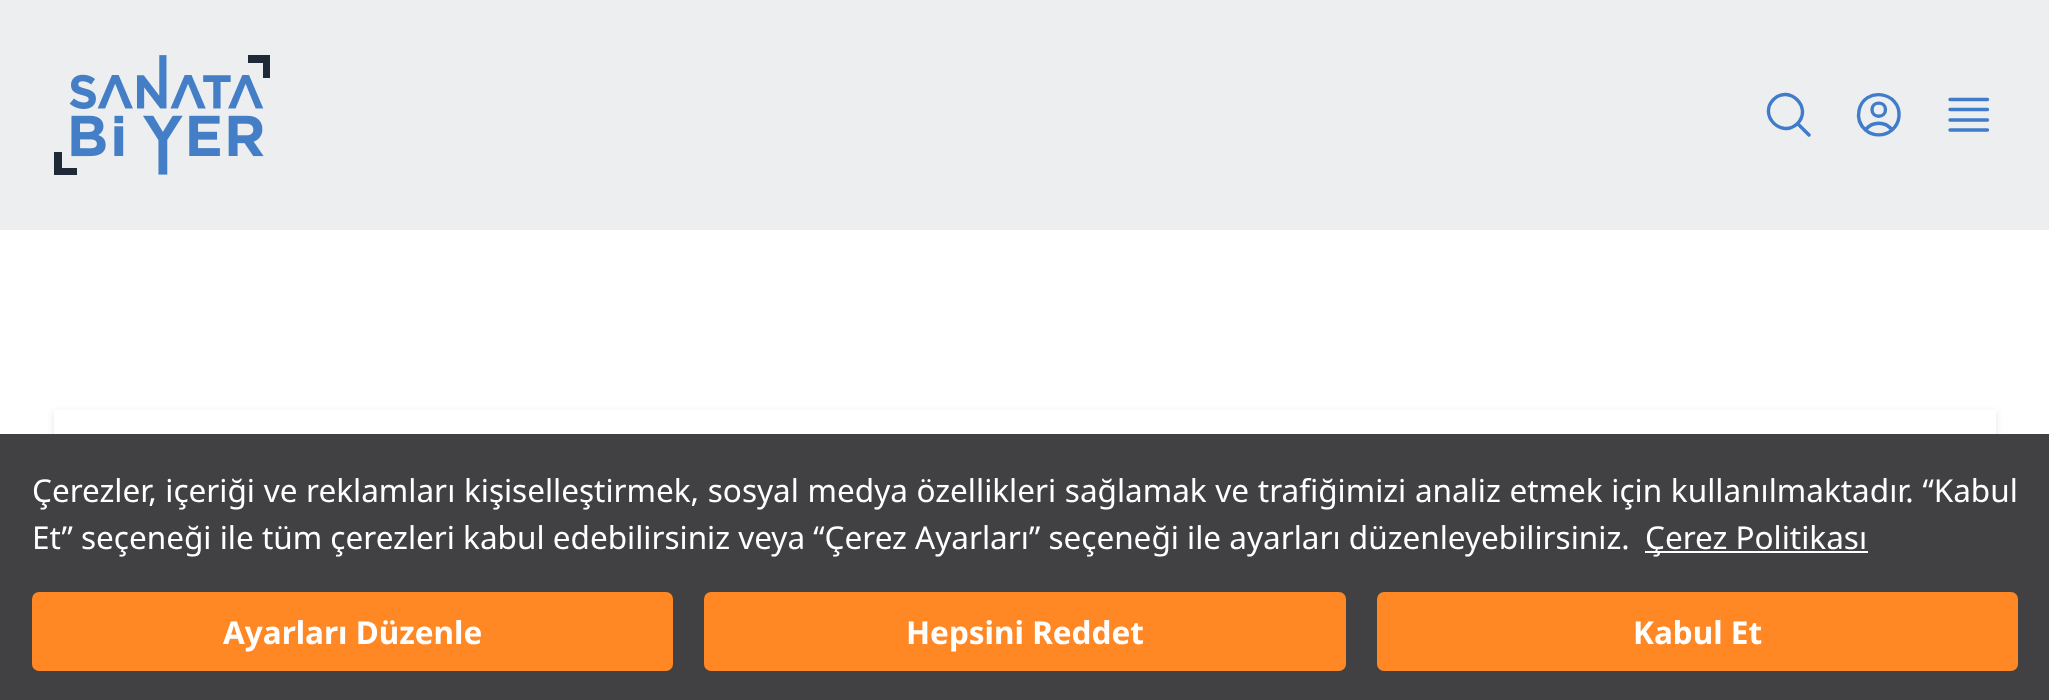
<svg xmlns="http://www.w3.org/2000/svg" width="2049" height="700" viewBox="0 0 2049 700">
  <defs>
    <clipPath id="clip1"><path d="M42 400H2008V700H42ZM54 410H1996V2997H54Z" clip-rule="evenodd"/></clipPath>
    <filter id="blur1" x="-50%" y="-200%" width="200%" height="500%"><feGaussianBlur stdDeviation="3.5"/></filter>
  </defs>
  <rect width="100%" height="100%" fill="#ffffff"/>
  <rect x="0" y="0" width="2049" height="230" fill="#eceeef"/>
  <image x="54" y="55" width="216" height="120" href="img1.png"/>
  <path d="M1809 135L1797.5 123.5M1797.5 123.5C1813 107.5 1789 84 1773.5 99.5C1758 115 1781.5 139 1797.5 123.5Z" fill="none" stroke="#407cca" stroke-width="3.4" stroke-linecap="round" stroke-linejoin="round"/>
  <path d="M1892 130C1885.5 121 1872 121 1865.5 130M1892 130C1896 126.5 1898.5 121.5 1899 116.5C1901 91.5 1864 86 1859 110.5C1857.5 117.5 1860 125 1865.5 130M1892 130C1884.5 136.5 1873 136.5 1865.5 130M1885.5 109.5C1885.5 118.5 1872 118.5 1872 109.5C1872 101 1885.5 101 1885.5 109.5Z" fill="none" stroke="#407cca" stroke-width="3.4" stroke-linecap="round" stroke-linejoin="round"/>
  <path d="M1950 99.5H1987.5M1950 109.5H1987.5M1950 120H1987.5M1950 130H1987.5" fill="none" stroke="#407cca" stroke-width="3.4" stroke-linecap="round" stroke-linejoin="round"/>
  <g clip-path="url(#clip1)">
    <rect x="54" y="412" width="1942" height="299" fill="#000000" fill-opacity="0.1" filter="url(#blur1)"/>
  </g>
  <rect x="0" y="434" width="2049" height="266" fill="#414042"/>
  <text x="32" y="502" word-spacing="0.5" font-family="Noto Sans" font-size="31.5" fill="#ffffff">Çerezler, içeriği ve reklamları kişiselleştirmek, sosyal medya özellikleri sağlamak ve trafiğimizi analiz etmek için kullanılmaktadır. “Kabul</text>
  <text x="32" y="549" font-family="Noto Sans" font-size="31.5" fill="#ffffff">Et” seçeneği ile tüm çerezleri kabul edebilirsiniz veya “Çerez Ayarları” seçeneği ile ayarları düzenleyebilirsiniz.</text>
  <rect x="1645" y="551" width="223" height="2" fill="#ffffff"/>
  <text x="1645" y="549" font-family="Noto Sans" font-size="31.5" fill="#ffffff">Çerez Politikası</text>
  <rect x="32" y="592" width="641" height="79" rx="7" fill="#ff8724"/>
  <text x="223" y="644" font-family="Noto Sans" font-size="31.5" font-weight="bold" fill="#ffffff">Ayarları Düzenle</text>
  <rect x="704" y="592" width="642" height="79" rx="7" fill="#ff8724"/>
  <text x="906" y="644" font-family="Noto Sans" font-size="31.5" font-weight="bold" fill="#ffffff">Hepsini Reddet</text>
  <rect x="1377" y="592" width="641" height="79" rx="7" fill="#ff8724"/>
  <text x="1633" y="644" font-family="Noto Sans" font-size="31.5" font-weight="bold" fill="#ffffff">Kabul Et</text>
</svg>
